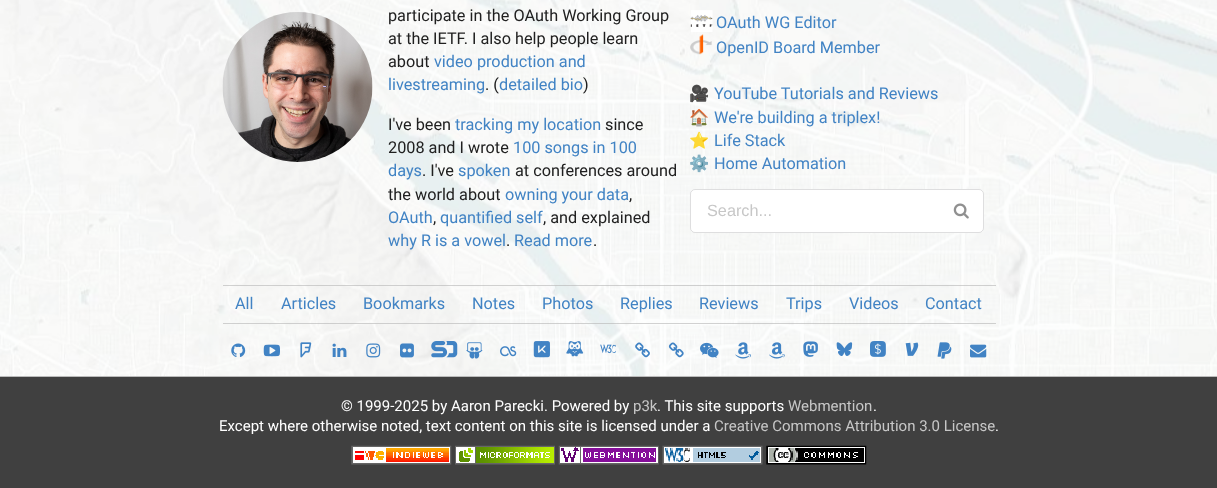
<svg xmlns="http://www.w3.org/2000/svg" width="1217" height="488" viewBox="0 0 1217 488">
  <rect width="100%" height="100%" fill="#ffffff"/>
  <image x="0" y="0" width="1217" height="376" href="img1.png"/>
  <rect x="0" y="0" width="1217" height="376" fill="#ffffff" fill-opacity="0.45"/>
  <image x="222" y="12" width="151" height="150" href="img2.png"/>
  <text x="388" y="21" font-family="Roboto" font-size="16.25" fill="#202020">participate in the OAuth Working Group</text>
  <text x="388" y="44" font-family="Roboto" font-size="16.25" fill="#202020">at the IETF. I also help people learn</text>
  <text x="388" y="67" font-family="Roboto" font-size="16.25" fill="#202020">about</text>
  <text x="434" y="67" font-family="Roboto" font-size="16.25" fill="#4183c4">video production and</text>
  <text x="388" y="90" font-family="Roboto" font-size="16.25" fill="#4183c4">livestreaming</text>
  <text x="485" y="90" font-family="Roboto" font-size="16.25" fill="#202020">. (</text>
  <text x="499" y="90" font-family="Roboto" font-size="16.25" fill="#4183c4">detailed bio</text>
  <text x="583" y="90" font-family="Roboto" font-size="16.25" fill="#202020">)</text>
  <text x="388" y="130" font-family="Roboto" font-size="16.25" fill="#202020">I've been</text>
  <text x="455" y="130" font-family="Roboto" font-size="16.25" fill="#4183c4">tracking my location</text>
  <text x="605" y="130" font-family="Roboto" font-size="16.25" fill="#202020">since</text>
  <text x="388" y="153" font-family="Roboto" font-size="16.25" fill="#202020">2008 and I wrote</text>
  <text x="513" y="153" font-family="Roboto" font-size="16.25" fill="#4183c4">100 songs in 100</text>
  <text x="388" y="176" font-family="Roboto" font-size="16.25" fill="#4183c4">days</text>
  <text x="422" y="176" font-family="Roboto" font-size="16.25" fill="#202020">. I've</text>
  <text x="458" y="176" font-family="Roboto" font-size="16.25" fill="#4183c4">spoken</text>
  <text x="515" y="176" font-family="Roboto" font-size="16.25" fill="#202020">at conferences around</text>
  <text x="388" y="200" font-family="Roboto" font-size="16.25" fill="#202020">the world about</text>
  <text x="505" y="200" font-family="Roboto" font-size="16.25" fill="#4183c4">owning your data</text>
  <text x="629" y="200" font-family="Roboto" font-size="16.25" fill="#202020">,</text>
  <text x="388" y="223" font-family="Roboto" font-size="16.25" fill="#4183c4">OAuth</text>
  <text x="433" y="223" font-family="Roboto" font-size="16.25" fill="#202020">,</text>
  <text x="440" y="223" font-family="Roboto" font-size="16.25" fill="#4183c4">quantified self</text>
  <text x="543" y="223" font-family="Roboto" font-size="16.25" fill="#202020">, and explained</text>
  <text x="388" y="246" font-family="Roboto" font-size="16.25" fill="#4183c4">why R is a vowel</text>
  <text x="506" y="246" font-family="Roboto" font-size="16.25" fill="#202020">.</text>
  <text x="514" y="246" font-family="Roboto" font-size="16.25" fill="#4183c4">Read more</text>
  <text x="593" y="246" font-family="Roboto" font-size="16.25" fill="#202020">.</text>
  <image x="690" y="10" width="23" height="22" href="img3.png"/>
  <text x="716" y="28" font-family="Roboto" font-size="16.25" fill="#4183c4">OAuth WG Editor</text>
  <image x="690" y="34" width="22" height="21" href="img4.png"/>
  <text x="716" y="53" font-family="Roboto" font-size="16.25" fill="#4183c4">OpenID Board Member</text>
  <text x="689" y="99" font-family="Noto Color Emoji" font-size="16.25" fill="#202020">🎥</text>
  <text x="714" y="99" font-family="Roboto" font-size="16.25" fill="#4183c4">YouTube Tutorials and Reviews</text>
  <text x="689" y="123" font-family="Noto Color Emoji" font-size="16.25" fill="#202020">🏠</text>
  <text x="714" y="123" font-family="Roboto" font-size="16.25" fill="#4183c4">We're building a triplex!</text>
  <text x="689" y="146" font-family="Noto Color Emoji" font-size="16.25" fill="#4183c4">⭐️</text>
  <text x="714" y="146" font-family="Roboto" font-size="16.25" fill="#4183c4">Life Stack</text>
  <text x="689" y="169" font-family="Noto Color Emoji" font-size="16.25" fill="#202020">⚙️</text>
  <text x="714" y="169" font-family="Roboto" font-size="16.25" fill="#4183c4">Home Automation</text>
  <rect x="690" y="189" width="294" height="44" rx="5" fill="#ffffff"/>
  <rect x="690.5" y="189.5" width="293" height="43" rx="4.5" fill="none" stroke="#222426" stroke-opacity="0.15"/>
  <text x="707" y="216" font-family="Liberation Sans" font-size="16.25" fill="#c7c7c7">Search...</text>
  <image x="953" y="203" width="16" height="16" href="img5.png"/>
  <rect x="223" y="285" width="773" height="1" fill="#b4b4b4" fill-opacity="0.6"/>
  <rect x="223" y="323" width="773" height="1" fill="#b4b4b4" fill-opacity="0.6"/>
  <text x="235" y="309" font-family="Roboto" font-size="16.25" fill="#4183c4">All</text>
  <text x="281" y="309" font-family="Roboto" font-size="16.25" fill="#4183c4">Articles</text>
  <text x="363" y="309" font-family="Roboto" font-size="16.25" fill="#4183c4">Bookmarks</text>
  <text x="472" y="309" font-family="Roboto" font-size="16.25" fill="#4183c4">Notes</text>
  <text x="542" y="309" font-family="Roboto" font-size="16.25" fill="#4183c4">Photos</text>
  <text x="620" y="309" font-family="Roboto" font-size="16.25" fill="#4183c4">Replies</text>
  <text x="699" y="309" font-family="Roboto" font-size="16.25" fill="#4183c4">Reviews</text>
  <text x="786" y="309" font-family="Roboto" font-size="16.25" fill="#4183c4">Trips</text>
  <text x="849" y="309" font-family="Roboto" font-size="16.25" fill="#4183c4">Videos</text>
  <text x="925" y="309" font-family="Roboto" font-size="16.25" fill="#4183c4">Contact</text>
  <image x="231" y="343" width="15" height="14" href="img6.png"/>
  <image x="263" y="344" width="17" height="13" href="img7.png"/>
  <image x="300" y="342" width="12" height="16" href="img8.png"/>
  <image x="332" y="343" width="15" height="14" href="img9.png"/>
  <image x="366" y="343" width="15" height="15" href="img10.png"/>
  <image x="400" y="343" width="14" height="15" href="img11.png"/>
  <image x="431" y="341" width="27" height="17" href="img12.png"/>
  <image x="466" y="342" width="17" height="17" href="img13.png"/>
  <image x="500" y="346" width="17" height="11" href="img14.png"/>
  <image x="533" y="341" width="17" height="17" href="img15.png"/>
  <image x="566" y="341" width="18" height="16" href="img16.png"/>
  <image x="600" y="344" width="17" height="10" href="img17.png"/>
  <image x="635" y="342" width="15" height="16" href="img18.png"/>
  <image x="668" y="342" width="16" height="16" href="img19.png"/>
  <image x="700" y="342" width="19" height="16" href="img20.png"/>
  <image x="735" y="342" width="16" height="17" href="img21.png"/>
  <image x="769" y="342" width="16" height="17" href="img22.png"/>
  <image x="803" y="341" width="15" height="16" href="img23.png"/>
  <image x="836" y="342" width="17" height="14" href="img24.png"/>
  <image x="870" y="341" width="16" height="16" href="img25.png"/>
  <image x="905" y="342" width="14" height="14" href="img26.png"/>
  <image x="937" y="342" width="15" height="17" href="img27.png"/>
  <image x="970" y="344" width="17" height="14" href="img28.png"/>
  <rect x="0" y="377" width="1217" height="111" fill="#404040"/>
  <rect x="0" y="376" width="1217" height="1" fill="#bbbbbb"/>
  <text x="341" y="411" font-family="Roboto" font-size="15" fill="#ffffff">© 1999-2025 by Aaron Parecki. Powered by</text>
  <text x="633" y="411" font-family="Roboto" font-size="15" fill="#c7c7c7">p3k</text>
  <text x="657" y="411" font-family="Roboto" font-size="15" fill="#ffffff">. This site supports</text>
  <text x="788" y="411" font-family="Roboto" font-size="15" fill="#c7c7c7">Webmention</text>
  <text x="873" y="411" font-family="Roboto" font-size="15" fill="#ffffff">.</text>
  <text x="219" y="431" font-family="Roboto" font-size="15" fill="#ffffff">Except where otherwise noted, text content on this site is licensed under a</text>
  <text x="714" y="431" font-family="Roboto" font-size="15" fill="#c7c7c7">Creative Commons Attribution 3.0 License</text>
  <text x="995" y="431" font-family="Roboto" font-size="15" fill="#ffffff">.</text>
  <image x="351" y="445" width="101" height="20" href="img29.png"/>
  <image x="455" y="445" width="100" height="20" href="img30.png"/>
  <image x="558" y="445" width="101" height="20" href="img31.png"/>
  <image x="662" y="445" width="101" height="20" href="img32.png"/>
  <image x="766" y="445" width="101" height="20" href="img33.png"/>
</svg>
